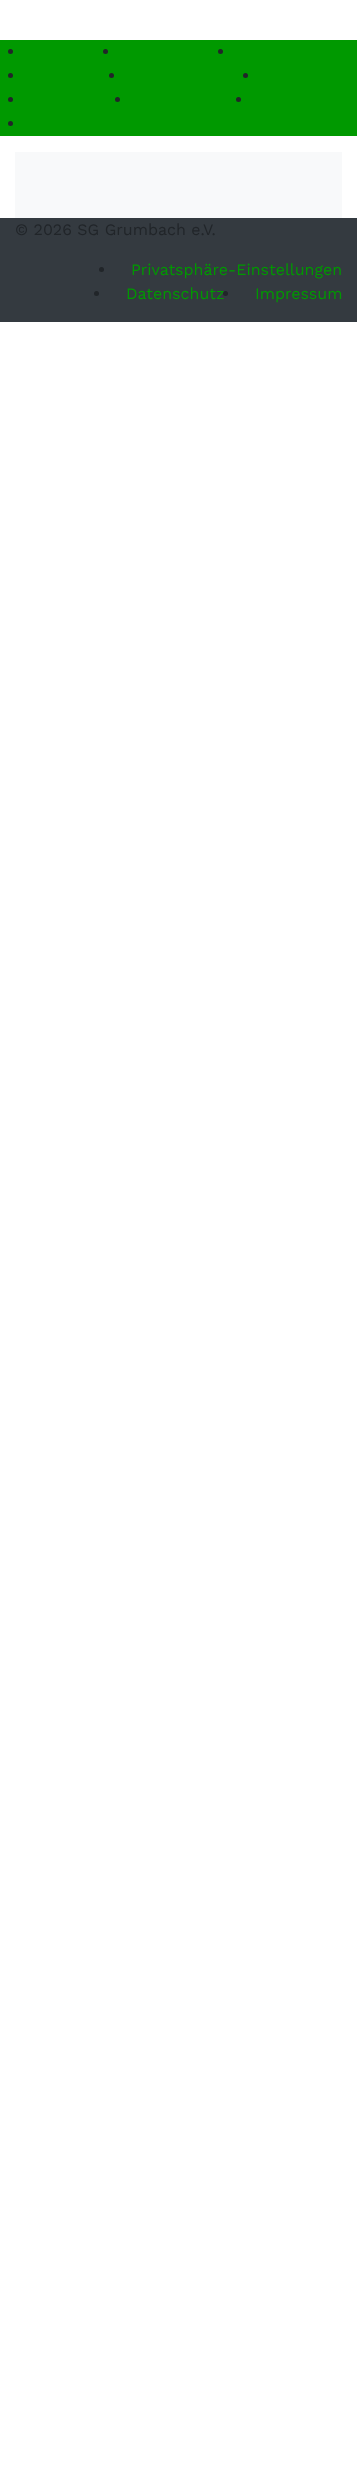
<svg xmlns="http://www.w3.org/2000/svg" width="357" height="2466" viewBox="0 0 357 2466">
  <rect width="100%" height="100%" fill="#ffffff"/>
  <rect x="0" y="40" width="357" height="96" fill="#009900"/>
  <circle cx="10.5" cy="51.5" r="2.5" fill="#212529"/>
  <circle cx="105.5" cy="51.5" r="2.5" fill="#212529"/>
  <circle cx="220.5" cy="51.5" r="2.5" fill="#212529"/>
  <circle cx="10.5" cy="75.5" r="2.5" fill="#212529"/>
  <circle cx="111.5" cy="75.5" r="2.5" fill="#212529"/>
  <circle cx="245.5" cy="75.5" r="2.5" fill="#212529"/>
  <circle cx="10.5" cy="99.5" r="2.5" fill="#212529"/>
  <circle cx="117.5" cy="99.5" r="2.5" fill="#212529"/>
  <circle cx="238.5" cy="99.5" r="2.5" fill="#212529"/>
  <circle cx="10.5" cy="123.5" r="2.5" fill="#212529"/>
  <rect x="15" y="152" width="327" height="66" fill="#f8f9fa"/>
  <rect x="0" y="218" width="357" height="104" fill="#343a40"/>
  <text x="15" y="235" font-family="Work Sans" font-size="16" fill="#212529">© 2026 SG Grumbach e.V.</text>
  <circle cx="101.5" cy="269.5" r="2.5" fill="#212529"/>
  <text x="131" y="275" font-family="Work Sans" font-size="16" fill="#009900">Privatsphäre-Einstellungen</text>
  <circle cx="96.5" cy="293.5" r="2.5" fill="#212529"/>
  <text x="126" y="299" font-family="Work Sans" font-size="16" fill="#009900">Datenschutz</text>
  <circle cx="225.5" cy="293.5" r="2.5" fill="#212529"/>
  <text x="255" y="299" font-family="Work Sans" font-size="16" fill="#009900">Impressum</text>
</svg>
